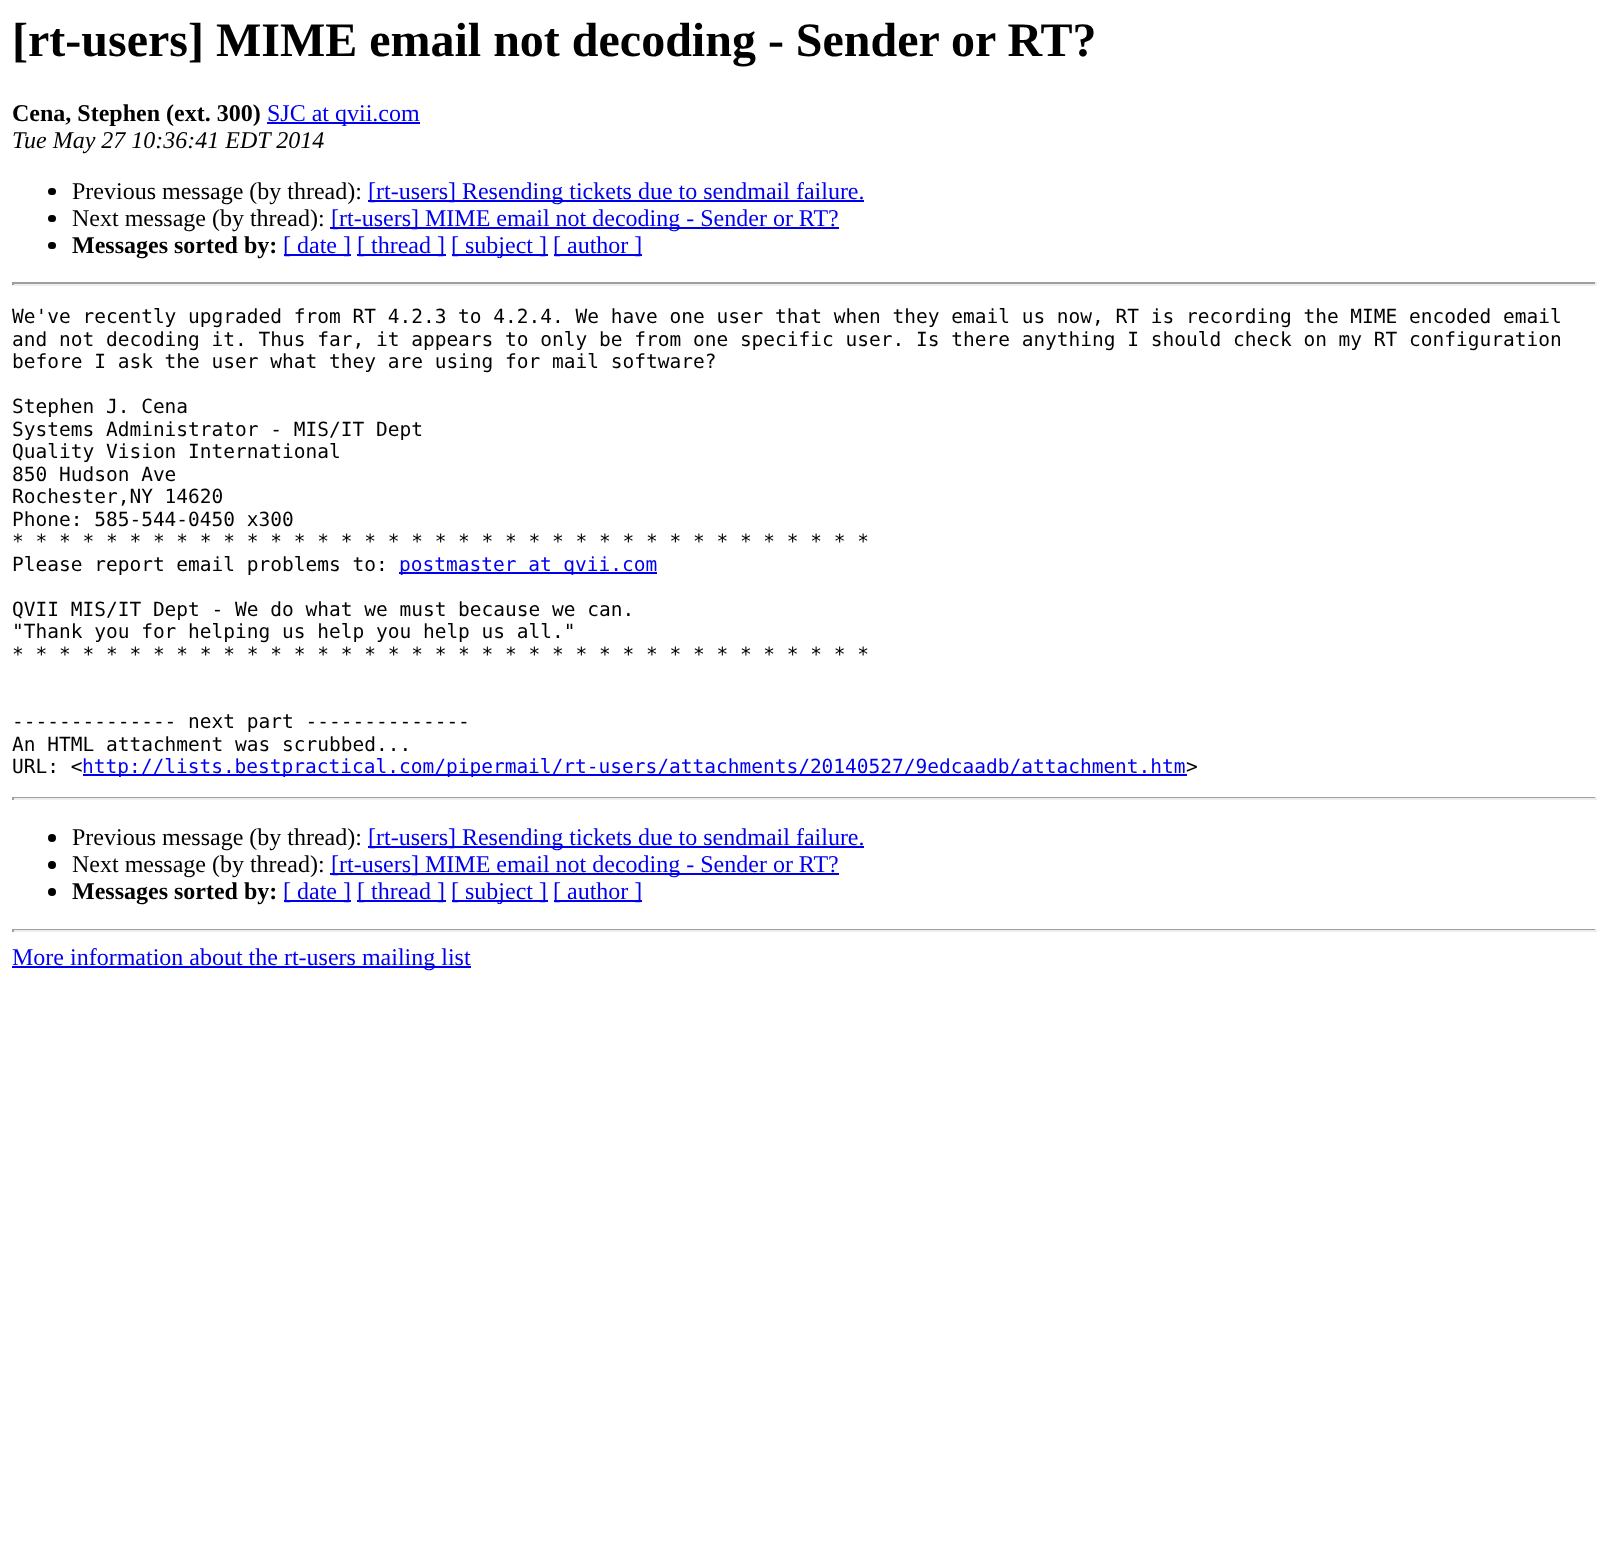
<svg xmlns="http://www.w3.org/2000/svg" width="1608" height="1556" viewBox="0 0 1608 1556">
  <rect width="100%" height="100%" fill="#ffffff"/>
  <text x="12" y="56" font-family="Liberation Serif" font-size="48" font-weight="bold" fill="#000000">[rt-users] MIME email not decoding - Sender or RT?</text>
  <text x="12" y="121" font-family="Liberation Serif" font-size="24" font-weight="bold" fill="#000000">Cena, Stephen (ext. 300)</text>
  <rect x="267" y="122" width="153" height="2" fill="#0000ee"/>
  <text x="267" y="121" font-family="Liberation Serif" font-size="24" fill="#0000ee">SJC at qvii.com</text>
  <text x="12" y="148" font-family="Liberation Serif" font-size="24" font-style="italic" fill="#000000">Tue May 27 10:36:41 EDT 2014</text>
  <rect x="48" y="188" width="8" height="7" rx="3.5" fill="#000000"/>
  <text x="72" y="199" font-family="Liberation Serif" font-size="24" fill="#000000">Previous message (by thread):</text>
  <rect x="368" y="200" width="496" height="2" fill="#0000ee"/>
  <text x="368" y="199" font-family="Liberation Serif" font-size="24" fill="#0000ee">[rt-users] Resending tickets due to sendmail failure.</text>
  <rect x="48" y="215" width="8" height="7" rx="3.5" fill="#000000"/>
  <text x="72" y="226" font-family="Liberation Serif" font-size="24" fill="#000000">Next message (by thread):</text>
  <rect x="330" y="227" width="509" height="2" fill="#0000ee"/>
  <text x="331" y="226" font-family="Liberation Serif" font-size="24" fill="#0000ee">[rt-users] MIME email not decoding - Sender or RT?</text>
  <rect x="48" y="242" width="8" height="7" rx="3.5" fill="#000000"/>
  <text x="72" y="253" font-family="Liberation Serif" font-size="24" font-weight="bold" fill="#000000">Messages sorted by:</text>
  <rect x="284" y="254" width="67" height="2" fill="#0000ee"/>
  <text x="283" y="253" font-family="Liberation Serif" font-size="24" fill="#0000ee">[ date ]</text>
  <rect x="357" y="254" width="89" height="2" fill="#0000ee"/>
  <text x="357" y="253" font-family="Liberation Serif" font-size="24" fill="#0000ee">[ thread ]</text>
  <rect x="452" y="254" width="96" height="2" fill="#0000ee"/>
  <text x="451" y="253" font-family="Liberation Serif" font-size="24" fill="#0000ee">[ subject ]</text>
  <rect x="554" y="254" width="88" height="2" fill="#0000ee"/>
  <text x="553" y="253" font-family="Liberation Serif" font-size="24" fill="#0000ee">[ author ]</text>
  <rect x="12" y="282" width="1584" height="2" fill="#9f9f9f"/>
  <rect x="1595" y="282" width="2" height="3" fill="#eeeeee"/>
  <rect x="12" y="284" width="1584" height="2" fill="#eeeeee"/>
  <rect x="12" y="282" width="2" height="3" fill="#9f9f9f"/>
  <text x="12" y="323" font-family="DejaVu Sans Mono" font-size="19.5" fill="#000000">We've recently upgraded from RT 4.2.3 to 4.2.4. We have one user that when they email us now, RT is recording the MIME encoded email</text>
  <text x="12" y="346" font-family="DejaVu Sans Mono" font-size="19.5" fill="#000000">and not decoding it. Thus far, it appears to only be from one specific user. Is there anything I should check on my RT configuration</text>
  <text x="12" y="368" font-family="DejaVu Sans Mono" font-size="19.5" fill="#000000">before I ask the user what they are using for mail software?</text>
  <text x="12" y="413" font-family="DejaVu Sans Mono" font-size="19.5" fill="#000000">Stephen J. Cena</text>
  <text x="12" y="436" font-family="DejaVu Sans Mono" font-size="19.5" fill="#000000">Systems Administrator - MIS/IT Dept</text>
  <text x="12" y="458" font-family="DejaVu Sans Mono" font-size="19.5" fill="#000000">Quality Vision International</text>
  <text x="12" y="481" font-family="DejaVu Sans Mono" font-size="19.5" fill="#000000">850 Hudson Ave</text>
  <text x="12" y="503" font-family="DejaVu Sans Mono" font-size="19.5" fill="#000000">Rochester,NY 14620</text>
  <text x="12" y="526" font-family="DejaVu Sans Mono" font-size="19.5" fill="#000000">Phone: 585-544-0450 x300</text>
  <text x="12" y="548" font-family="DejaVu Sans Mono" font-size="19.5" fill="#000000">* * * * * * * * * * * * * * * * * * * * * * * * * * * * * * * * * * * * *</text>
  <text x="12" y="571" font-family="DejaVu Sans Mono" font-size="19.5" fill="#000000">Please report email problems to:</text>
  <rect x="399" y="572" width="258" height="2" fill="#0000ee"/>
  <text x="399" y="571" font-family="DejaVu Sans Mono" font-size="19.5" fill="#0000ee">postmaster at qvii.com</text>
  <text x="12" y="616" font-family="DejaVu Sans Mono" font-size="19.5" fill="#000000">QVII MIS/IT Dept - We do what we must because we can.</text>
  <text x="12" y="638" font-family="DejaVu Sans Mono" font-size="19.5" fill="#000000">"Thank you for helping us help you help us all."</text>
  <text x="12" y="661" font-family="DejaVu Sans Mono" font-size="19.5" fill="#000000">* * * * * * * * * * * * * * * * * * * * * * * * * * * * * * * * * * * * *</text>
  <text x="12" y="728" font-family="DejaVu Sans Mono" font-size="19.5" fill="#000000">-------------- next part --------------</text>
  <text x="12" y="751" font-family="DejaVu Sans Mono" font-size="19.5" fill="#000000">An HTML attachment was scrubbed...</text>
  <text x="12" y="773" font-family="DejaVu Sans Mono" font-size="19.5" fill="#000000">URL: &lt;</text>
  <rect x="83" y="774" width="1104" height="2" fill="#0000ee"/>
  <text x="82" y="773" font-family="DejaVu Sans Mono" font-size="19.5" fill="#0000ee">http://lists.bestpractical.com/pipermail/rt-users/attachments/20140527/9edcaadb/attachment.htm</text>
  <text x="1186" y="773" font-family="DejaVu Sans Mono" font-size="19.5" fill="#000000">&gt;</text>
  <rect x="12" y="797" width="1584" height="1" fill="#9f9f9f"/>
  <rect x="1595" y="797" width="2" height="3" fill="#eeeeee"/>
  <rect x="12" y="798" width="1584" height="2" fill="#eeeeee"/>
  <rect x="12" y="797" width="2" height="3" fill="#9f9f9f"/>
  <circle cx="52" cy="838" r="4" fill="#000000"/>
  <text x="72" y="845" font-family="Liberation Serif" font-size="24" fill="#000000">Previous message (by thread):</text>
  <rect x="368" y="846" width="496" height="2" fill="#0000ee"/>
  <text x="368" y="845" font-family="Liberation Serif" font-size="24" fill="#0000ee">[rt-users] Resending tickets due to sendmail failure.</text>
  <circle cx="52" cy="865" r="4" fill="#000000"/>
  <text x="72" y="872" font-family="Liberation Serif" font-size="24" fill="#000000">Next message (by thread):</text>
  <rect x="330" y="873" width="509" height="2" fill="#0000ee"/>
  <text x="331" y="872" font-family="Liberation Serif" font-size="24" fill="#0000ee">[rt-users] MIME email not decoding - Sender or RT?</text>
  <circle cx="52" cy="892" r="4" fill="#000000"/>
  <text x="72" y="899" font-family="Liberation Serif" font-size="24" font-weight="bold" fill="#000000">Messages sorted by:</text>
  <rect x="284" y="900" width="67" height="2" fill="#0000ee"/>
  <text x="283" y="899" font-family="Liberation Serif" font-size="24" fill="#0000ee">[ date ]</text>
  <rect x="357" y="900" width="89" height="2" fill="#0000ee"/>
  <text x="357" y="899" font-family="Liberation Serif" font-size="24" fill="#0000ee">[ thread ]</text>
  <rect x="452" y="900" width="96" height="2" fill="#0000ee"/>
  <text x="451" y="899" font-family="Liberation Serif" font-size="24" fill="#0000ee">[ subject ]</text>
  <rect x="554" y="900" width="88" height="2" fill="#0000ee"/>
  <text x="553" y="899" font-family="Liberation Serif" font-size="24" fill="#0000ee">[ author ]</text>
  <rect x="12" y="929" width="1584" height="1" fill="#9f9f9f"/>
  <rect x="1595" y="929" width="2" height="3" fill="#eeeeee"/>
  <rect x="12" y="930" width="1584" height="2" fill="#eeeeee"/>
  <rect x="12" y="929" width="2" height="3" fill="#9f9f9f"/>
  <rect x="12" y="966" width="459" height="2" fill="#0000ee"/>
  <text x="12" y="965" font-family="Liberation Serif" font-size="24" fill="#0000ee">More information about the rt-users mailing list</text>
</svg>
